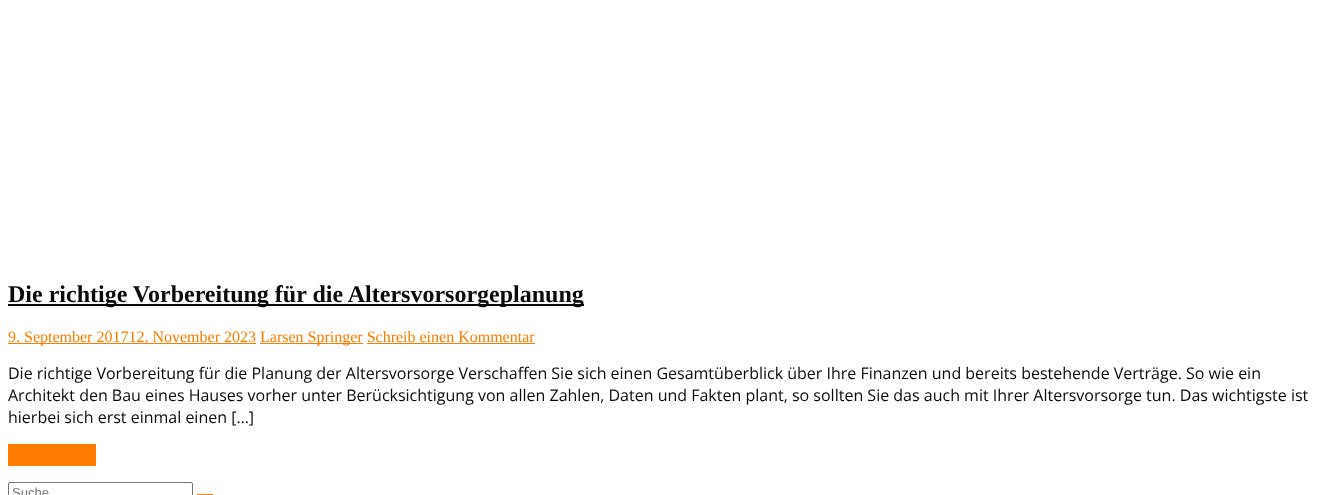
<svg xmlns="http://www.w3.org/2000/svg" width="1320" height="495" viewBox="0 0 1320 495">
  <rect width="100%" height="100%" fill="#ffffff"/>
  <rect x="8" y="304" width="576" height="2" fill="#0a0a0a"/>
  <text x="8" y="302" font-family="Liberation Serif" font-size="24" font-weight="bold" fill="#0a0a0a">Die richtige Vorbereitung für die Altersvorsorgeplanung</text>
  <rect x="8" y="343" width="248" height="1" fill="#ff7c00"/>
  <text x="8" y="342" font-family="Liberation Serif" font-size="16" fill="#ff7c00">9. September 201712. November 2023</text>
  <rect x="260" y="343" width="103" height="1" fill="#ff7c00"/>
  <text x="260" y="342" font-family="Liberation Serif" font-size="16" fill="#ff7c00">Larsen Springer Schreib einen Kommentar</text>
  <rect x="367" y="343" width="168" height="1" fill="#ff7c00"/>
  <text x="8" y="379" font-family="Open Sans" font-size="16" fill="#0a0a0a">Die richtige Vorbereitung für die Planung der Altersvorsorge Verschaffen Sie sich einen Gesamtüberblick über Ihre Finanzen und bereits bestehende Verträge. So wie ein</text>
  <text x="8" y="401" font-family="Open Sans" font-size="16" fill="#0a0a0a">Architekt den Bau eines Hauses vorher unter Berücksichtigung von allen Zahlen, Daten und Fakten plant, so sollten Sie das auch mit Ihrer Altersvorsorge tun. Das wichtigste ist</text>
  <text x="8" y="423" font-family="Open Sans" font-size="16" fill="#0a0a0a">hierbei sich erst einmal einen […]</text>
  <rect x="8" y="444" width="88" height="22" fill="#ff7c00"/>
  <rect x="8.5" y="482.5" width="184" height="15" rx="1.5" fill="none" stroke="#767676"/>
  <text x="12" y="497" font-family="Liberation Sans" font-size="13" fill="#757575">Suche</text>
  <rect x="197" y="494" width="16" height="1" fill="#ff7c00"/>
  <path d="M213 494V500L211 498V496Z" fill="#aa5300"/>
</svg>
